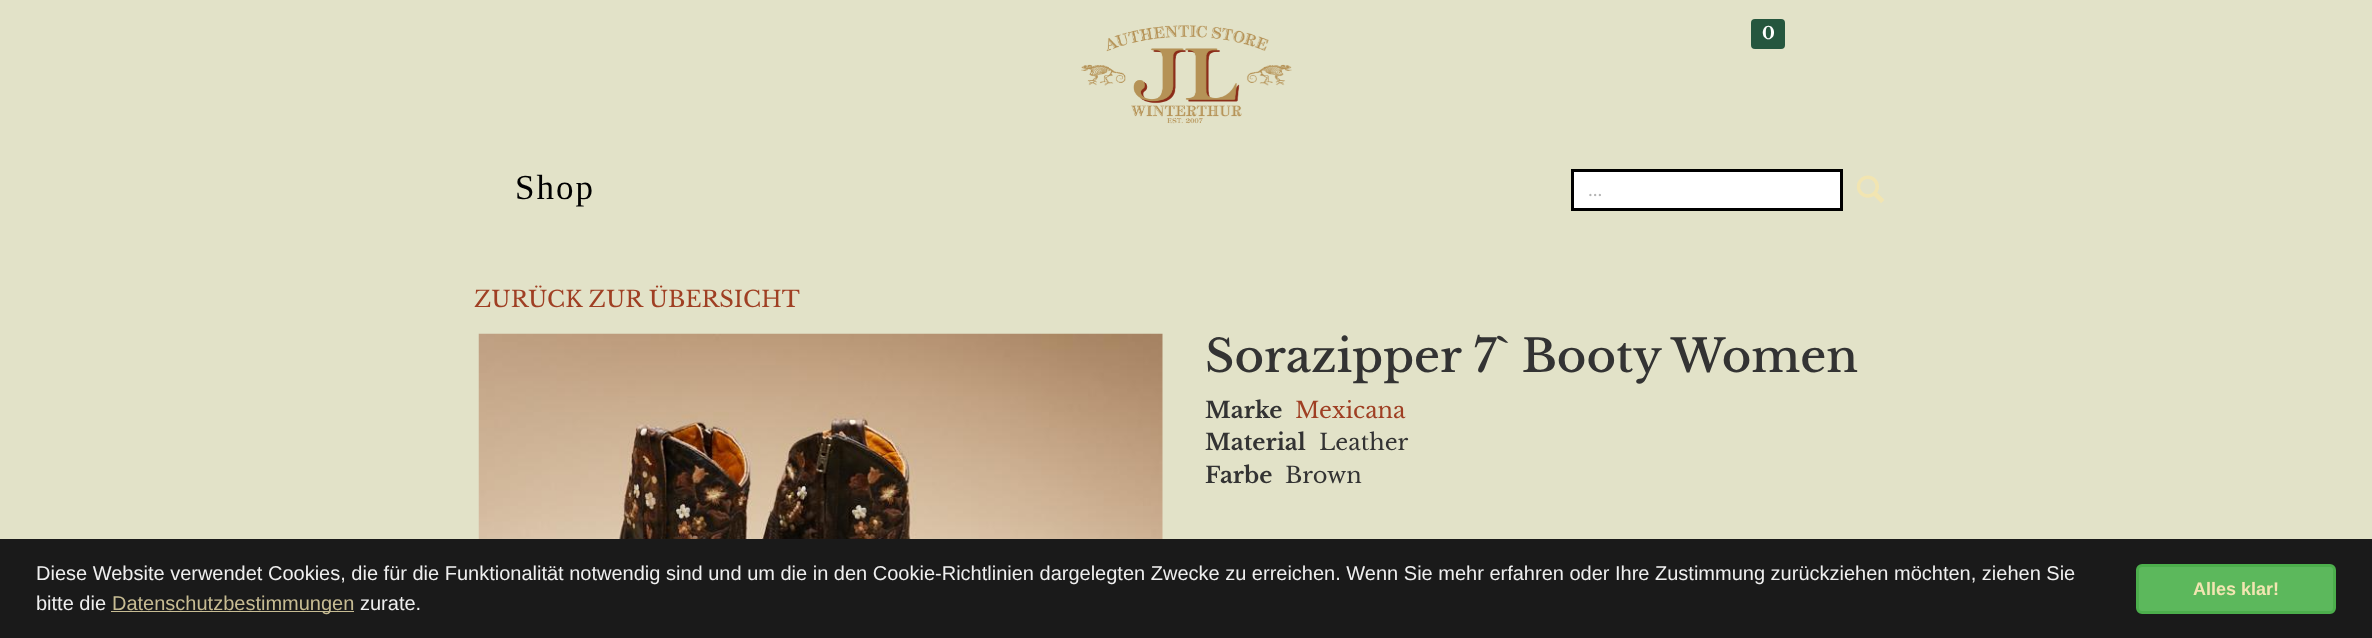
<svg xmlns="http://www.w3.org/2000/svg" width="2372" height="638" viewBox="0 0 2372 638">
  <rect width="100%" height="100%" fill="#e2e2c8"/>
  <image x="1081" y="25" width="211" height="99" href="img1.png"/>
  <rect x="1751" y="19" width="34" height="30" rx="4" fill="#25563e"/>
  <text x="1762" y="39" font-family="Libre Baskerville" font-size="17" font-weight="bold" fill="#ffffff">0</text>
  <text x="515" y="199" font-family="Liberation Serif" font-size="35" letter-spacing="2" fill="#000000">Shop</text>
  <rect x="1572.5" y="170.5" width="269" height="39" fill="#ffffff" stroke="#000000" stroke-width="3"/>
  <text x="1588" y="196" font-family="Libre Baskerville" font-size="18" fill="#b2b2b2">...</text>
  <image x="1856" y="175" width="28" height="28" href="img2.png"/>
  <text x="474" y="307" font-family="Libre Baskerville" font-size="22.5" fill="#9f3f23">ZURÜCK ZUR ÜBERSICHT</text>
  <image x="478" y="333" width="685" height="206" href="img3.png"/>
  <text x="1205" y="372" font-family="Libre Baskerville" font-size="45" font-weight="500" fill="#333333">Sorazipper 7` Booty Women</text>
  <text x="1205" y="418" font-family="Libre Baskerville" font-size="22.5" font-weight="bold" fill="#333333">Marke</text>
  <text x="1295" y="418" font-family="Libre Baskerville" font-size="22.5" fill="#9f3f23">Mexicana</text>
  <text x="1205" y="450" font-family="Libre Baskerville" font-size="22.5" font-weight="bold" fill="#333333">Material</text>
  <text x="1319" y="450" font-family="Libre Baskerville" font-size="22.5" fill="#333333">Leather</text>
  <text x="1205" y="483" font-family="Libre Baskerville" font-size="22.5" font-weight="bold" fill="#333333">Farbe</text>
  <text x="1285" y="483" font-family="Libre Baskerville" font-size="22.5" fill="#333333">Brown</text>
  <rect x="0" y="539" width="2372" height="99" fill="#1a1a1a"/>
  <text x="36" y="580" font-family="Liberation Sans" font-size="20" fill="#efefef">Diese Website verwendet Cookies, die für die Funktionalität notwendig sind und um die in den Cookie-Richtlinien dargelegten Zwecke zu erreichen. Wenn Sie mehr erfahren oder Ihre Zustimmung zurückziehen möchten, ziehen Sie</text>
  <text x="36" y="610" font-family="Liberation Sans" font-size="20" fill="#efefef">bitte die</text>
  <rect x="111" y="611" width="243" height="1" fill="#c7bc93"/>
  <text x="112" y="610" font-family="Liberation Sans" font-size="20" fill="#c7bc93">Datenschutzbestimmungen</text>
  <text x="360" y="610" font-family="Liberation Sans" font-size="20" fill="#efefef">zurate.</text>
  <rect x="2137.5" y="565.5" width="197" height="47" rx="4.5" fill="#5cb85c" stroke="#4cae4c" stroke-width="3"/>
  <text x="2193" y="595" font-family="Liberation Sans" font-size="18" font-weight="bold" fill="#f2e5b1">Alles klar!</text>
</svg>
